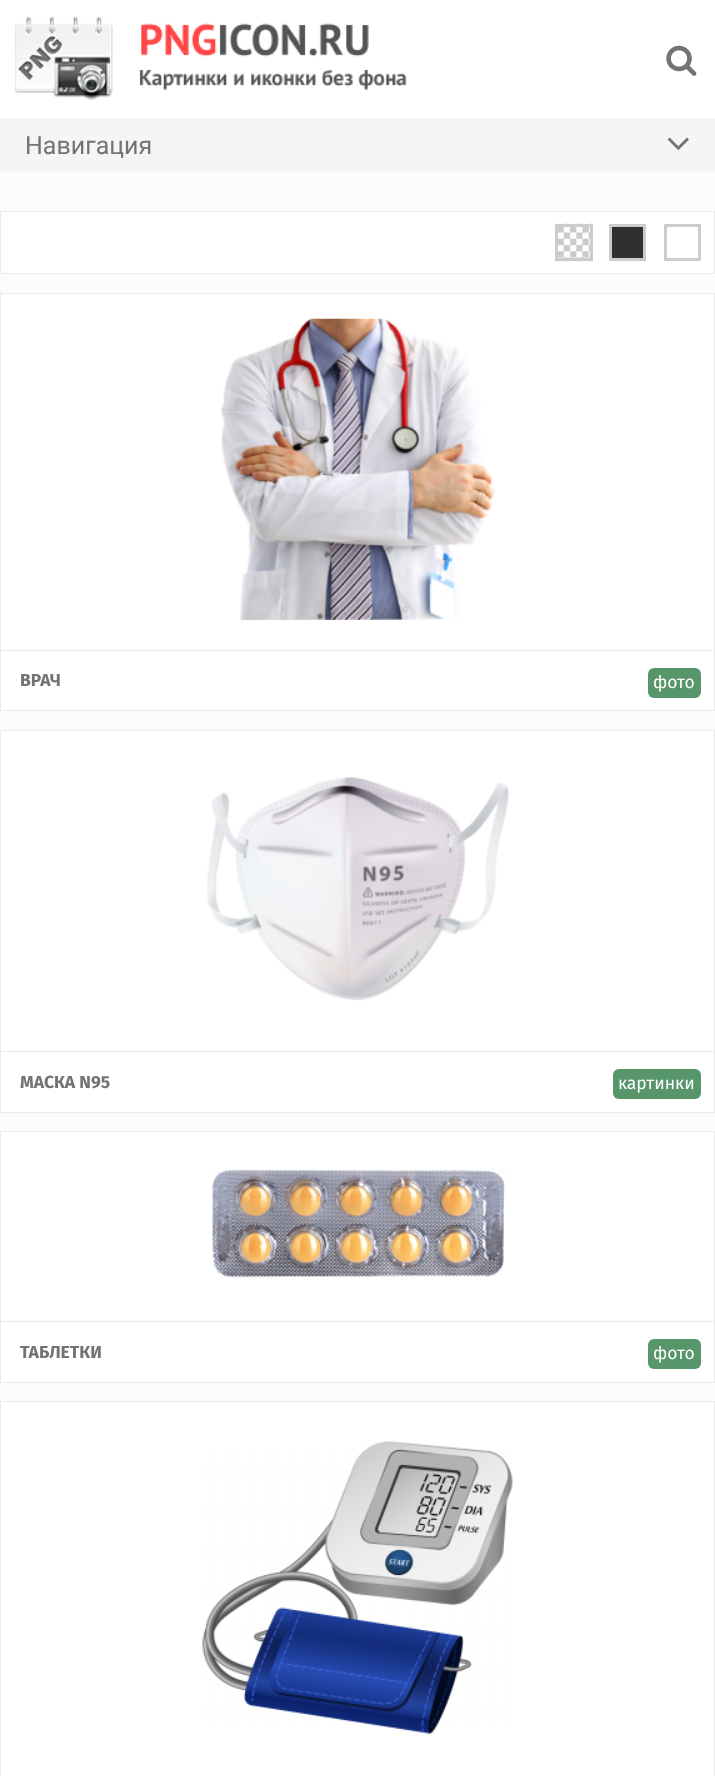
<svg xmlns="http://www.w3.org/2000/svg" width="715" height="1776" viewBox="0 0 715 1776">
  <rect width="100%" height="100%" fill="#fcfcfc"/>
  <rect x="0" y="0" width="715" height="118" fill="#ffffff"/>
  <image x="14" y="16" width="393" height="85" href="img1.png"/>
  <image x="666" y="45" width="31" height="31" href="img2.png"/>
  <rect x="0" y="118" width="715" height="55" fill="#f5f5f5"/>
  <rect x="0" y="173" width="715" height="1" fill="#ffffff"/>
  <text x="25" y="154" font-family="Roboto" font-size="25" fill="#737373">Навигация</text>
  <image x="667" y="137" width="22" height="13" href="img3.png"/>
  <rect x="0.5" y="211.5" width="714" height="62" fill="#ffffff" stroke="#eaeaea"/>
  <image x="555" y="223" width="38" height="39" href="img4.png"/>
  <rect x="556.5" y="225.5" width="35" height="34" fill="none" stroke="#cccccc" stroke-width="3"/>
  <rect x="610.5" y="225.5" width="34" height="34" fill="#2f2f2f" stroke="#cccccc" stroke-width="3"/>
  <rect x="665.5" y="225.5" width="34" height="34" fill="none" stroke="#cccccc" stroke-width="3"/>
  <rect x="0.5" y="293.5" width="714" height="417" fill="#ffffff" stroke="#e9ecef"/>
  <image x="221" y="318" width="274" height="302" href="img5.png"/>
  <rect x="1" y="650" width="713" height="1" fill="#e9e9e9"/>
  <text x="20" y="686" font-family="Fira Sans" font-size="17.5" font-weight="bold" fill="#737373">ВРАЧ</text>
  <rect x="648" y="668" width="53" height="30" rx="6" fill="#57956a"/>
  <text x="653" y="688" font-family="Fira Sans" font-size="17.5" fill="#ffffff">фото</text>
  <rect x="0.5" y="730.5" width="714" height="382" fill="#ffffff" stroke="#e9ecef"/>
  <image x="206" y="776" width="303" height="225" href="img6.png"/>
  <rect x="1" y="1051" width="713" height="1" fill="#e9e9e9"/>
  <text x="20" y="1088" font-family="Fira Sans" font-size="17.5" font-weight="bold" fill="#737373">МАСКА N95</text>
  <rect x="613" y="1069" width="88" height="30" rx="6" fill="#57956a"/>
  <text x="618" y="1089" font-family="Fira Sans" font-size="17.5" fill="#ffffff">картинки</text>
  <rect x="0.5" y="1131.5" width="714" height="251" fill="#ffffff" stroke="#e9ecef"/>
  <image x="212" y="1169" width="294" height="109" href="img7.png"/>
  <rect x="1" y="1321" width="713" height="1" fill="#e9e9e9"/>
  <text x="20" y="1358" font-family="Fira Sans" font-size="17.5" font-weight="bold" fill="#737373">ТАБЛЕТКИ</text>
  <rect x="648" y="1339" width="53" height="30" rx="6" fill="#57956a"/>
  <text x="653" y="1359" font-family="Fira Sans" font-size="17.5" fill="#ffffff">фото</text>
  <rect x="0.5" y="1401.5" width="714" height="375" fill="#ffffff" stroke="#e9ecef"/>
  <image x="202" y="1441" width="311" height="293" href="img8.png"/>
</svg>
